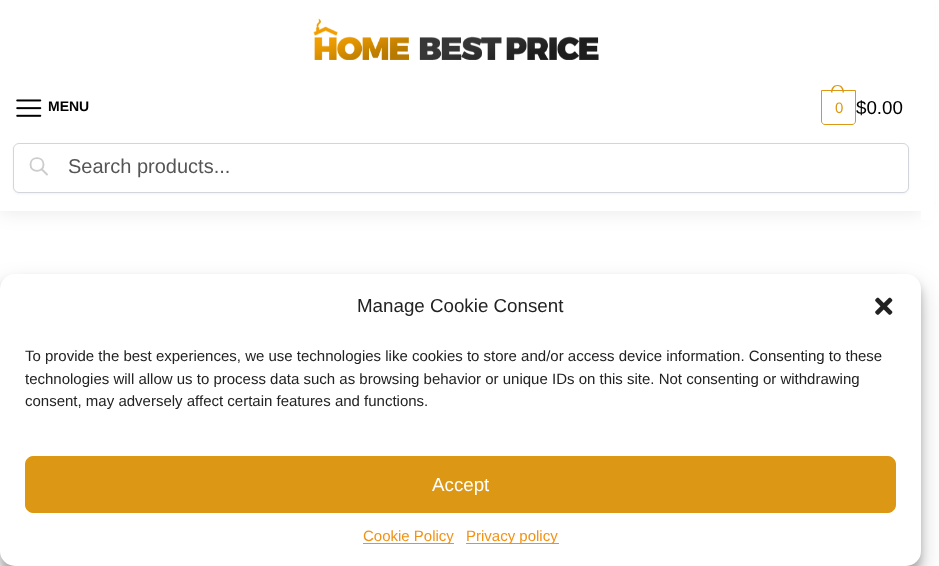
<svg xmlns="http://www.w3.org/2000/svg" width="939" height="566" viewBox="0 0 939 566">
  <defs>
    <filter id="blur1" x="-50%" y="-200%" width="200%" height="500%"><feGaussianBlur stdDeviation="9.5"/></filter>
    <filter id="blur2" x="-50%" y="-200%" width="200%" height="500%"><feGaussianBlur stdDeviation="1"/></filter>
    <filter id="blur3" x="-50%" y="-200%" width="200%" height="500%"><feGaussianBlur stdDeviation="4"/></filter>
    <filter id="blur4" x="-50%" y="-200%" width="200%" height="500%"><feGaussianBlur stdDeviation="12.5"/></filter>
  </defs>
  <rect width="100%" height="100%" fill="#ffffff"/>
  <rect x="-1" y="-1" width="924" height="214" fill="#000000" fill-opacity="0.08" filter="url(#blur1)"/>
  <rect x="0" y="0" width="921" height="211" fill="#ffffff"/>
  <image x="313" y="18" width="286" height="42" href="img1.png"/>
  <image x="16" y="99" width="26" height="18" href="img2.png"/>
  <text x="48" y="111" font-family="Liberation Sans" font-size="14" font-weight="bold" fill="#000000">MENU</text>
  <path d="M821.5 90.5H855.5V121C855.5 123 854 124.5 852 124.5H825C823 124.5 821.5 123 821.5 121Z" fill="none" stroke="#dc9814"/>
  <path d="M837.5 85C842 85 844 88.5 844 92.5H831C831 88.5 833 85 837.5 85ZM837.5 86C841 86 842.5 89.5 842.5 92.5H832.5C832.5 89.5 834 86 837.5 86Z" fill="#dc9814" fill-rule="evenodd"/>
  <text x="835" y="113" font-family="Liberation Sans" font-size="15" letter-spacing="-1" fill="#dc9814">0</text>
  <text x="856" y="114" font-family="Liberation Sans" font-size="18.75" fill="#000000">$0.00</text>
  <rect x="13" y="144" width="896" height="50" rx="6" fill="#000000" fill-opacity="0.05" filter="url(#blur2)"/>
  <rect x="13.5" y="143.5" width="895" height="49" rx="5.5" fill="#ffffff" stroke="#d2d6dc"/>
  <path d="M47 174.5L41.5 169M43.5 164.5C43.5 173 30.5 173 30.5 164.5C30.5 156 43.5 156 43.5 164.5Z" fill="none" stroke="#cccccc" stroke-width="1.9" stroke-linecap="round" stroke-linejoin="round"/>
  <text x="68" y="173" font-family="Liberation Sans" font-size="20" fill="#555555">Search products...</text>
  <rect x="921" y="0" width="13" height="220" fill="#ffffff"/>
  <rect x="0" y="281" width="921" height="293" rx="15" fill="#000000" fill-opacity="0.23" filter="url(#blur3)"/>
  <rect x="0" y="286" width="921" height="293" rx="15" fill="#000000" fill-opacity="0.19" filter="url(#blur4)"/>
  <rect x="0" y="274" width="921" height="292" rx="15" fill="#ffffff"/>
  <text x="357" y="312" font-family="Liberation Sans" font-size="18.75" fill="#222222">Manage Cookie Consent</text>
  <image x="875" y="297" width="18" height="18" href="img3.png"/>
  <text x="25" y="361" font-family="Liberation Sans" font-size="15" fill="#222222">To provide the best experiences, we use technologies like cookies to store and/or access device information. Consenting to these</text>
  <text x="25" y="384" font-family="Liberation Sans" font-size="15" fill="#222222">technologies will allow us to process data such as browsing behavior or unique IDs on this site. Not consenting or withdrawing</text>
  <text x="25" y="406" font-family="Liberation Sans" font-size="15" fill="#222222">consent, may adversely affect certain features and functions.</text>
  <rect x="25.5" y="456.5" width="870" height="56" rx="7.5" fill="#dc9814" stroke="#dc9814"/>
  <text x="432" y="491" font-family="Liberation Sans" font-size="18.75" fill="#ffffff">Accept</text>
  <rect x="363" y="543" width="91" height="1" fill="#f29215"/>
  <text x="363" y="541" font-family="Liberation Sans" font-size="15" fill="#f29215">Cookie Policy</text>
  <rect x="466" y="543" width="93" height="1" fill="#f29215"/>
  <text x="466" y="541" font-family="Liberation Sans" font-size="15" fill="#f29215">Privacy policy</text>
</svg>
